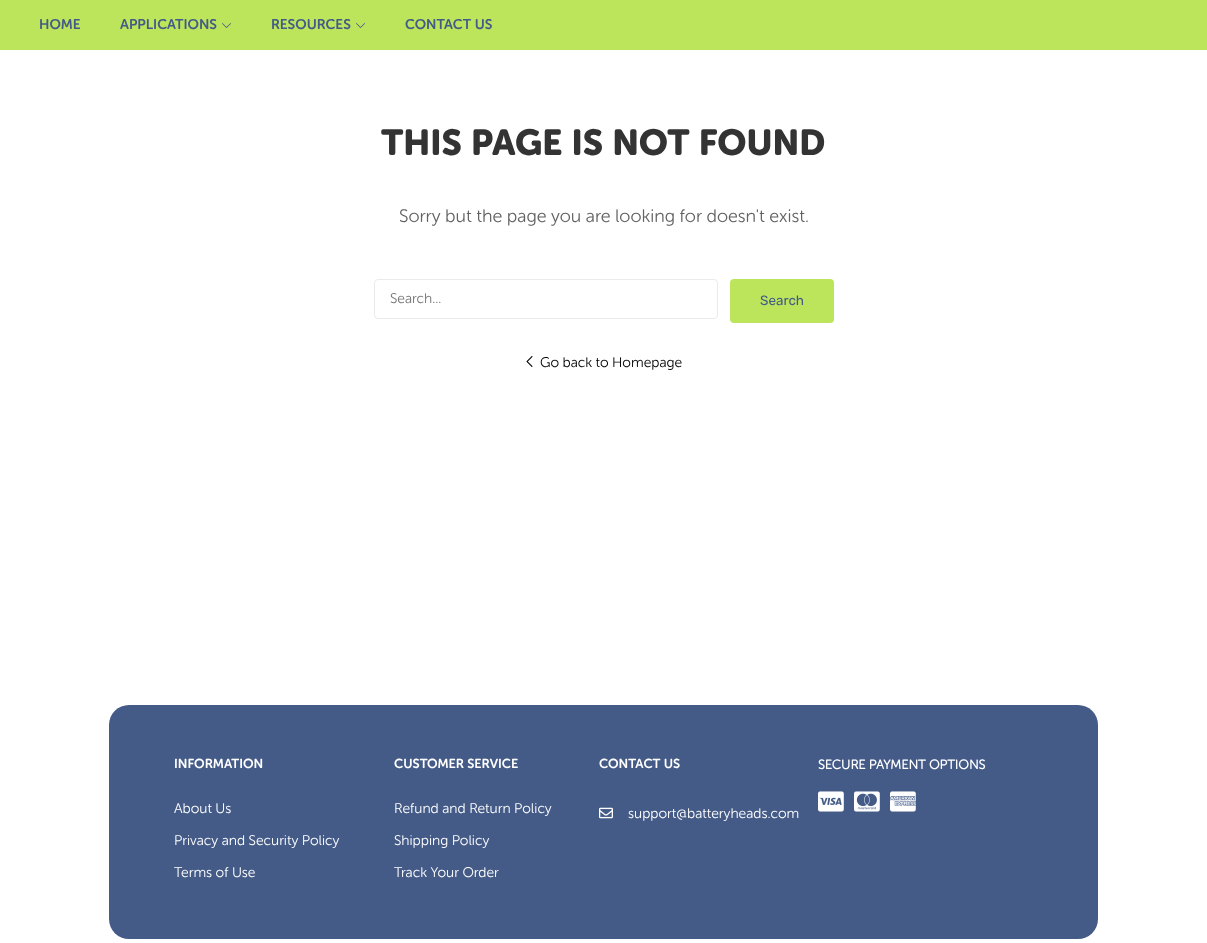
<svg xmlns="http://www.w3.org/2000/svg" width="1207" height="943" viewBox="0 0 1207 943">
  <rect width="100%" height="100%" fill="#ffffff"/>
  <rect x="0" y="0" width="1207" height="50" fill="#bde55b"/>
  <text x="39" y="29" font-family="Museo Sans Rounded" font-size="14" font-weight="600" fill="#445b88">HOME</text>
  <text x="120" y="29" font-family="Museo Sans Rounded" font-size="14" font-weight="600" fill="#445b88">APPLICATIONS</text>
  <image x="222" y="23" width="9" height="5" href="img1.png"/>
  <text x="271" y="29" font-family="Museo Sans Rounded" font-size="14" font-weight="600" fill="#445b88">RESOURCES</text>
  <image x="356" y="23" width="9" height="5" href="img1.png"/>
  <text x="405" y="29" font-family="Museo Sans Rounded" font-size="14" font-weight="600" fill="#445b88">CONTACT US</text>
  <text x="381" y="155" font-family="'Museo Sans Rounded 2'" font-size="36" font-weight="bold" fill="#333333">THIS PAGE IS NOT FOUND</text>
  <text x="399" y="222" font-family="Museo Sans Rounded" font-size="18" font-weight="300" fill="#626262">Sorry but the page you are looking for doesn't exist.</text>
  <rect x="374.5" y="279.5" width="343" height="39" rx="3.5" fill="none" stroke="#ebebeb"/>
  <text x="390" y="303" font-family="Museo Sans Rounded" font-size="14" font-weight="300" fill="#757575">Search...</text>
  <rect x="730" y="279" width="104" height="44" rx="4" fill="#bde55b"/>
  <text x="760" y="305" font-family="Rubik" font-size="13.5" fill="#445b88">Search</text>
  <image x="526" y="356" width="7" height="11" href="img2.png"/>
  <text x="540" y="367" font-family="Museo Sans Rounded" font-size="14" font-weight="300" fill="#000000">Go back to Homepage</text>
  <rect x="109" y="705" width="989" height="234" rx="20" fill="#445b88"/>
  <text x="174" y="768" font-family="Museo Sans Rounded" font-size="13" font-weight="600" fill="#ffffff">INFORMATION</text>
  <text x="174" y="813" font-family="Museo Sans Rounded" font-size="14" font-weight="300" fill="#ffffff">About Us</text>
  <text x="174" y="845" font-family="Museo Sans Rounded" font-size="14" font-weight="300" fill="#ffffff">Privacy and Security Policy</text>
  <text x="174" y="877" font-family="Museo Sans Rounded" font-size="14" font-weight="300" fill="#ffffff">Terms of Use</text>
  <text x="394" y="768" font-family="Museo Sans Rounded" font-size="13" font-weight="600" fill="#ffffff">CUSTOMER SERVICE</text>
  <text x="394" y="813" font-family="Museo Sans Rounded" font-size="14" font-weight="300" fill="#ffffff">Refund and Return Policy</text>
  <text x="394" y="845" font-family="Museo Sans Rounded" font-size="14" font-weight="300" fill="#ffffff">Shipping Policy</text>
  <text x="394" y="877" font-family="Museo Sans Rounded" font-size="14" font-weight="300" fill="#ffffff">Track Your Order</text>
  <text x="599" y="768" font-family="Museo Sans Rounded" font-size="13" font-weight="600" fill="#ffffff">CONTACT US</text>
  <image x="599" y="807" width="14" height="12" href="img3.png"/>
  <text x="628" y="818" font-family="Museo Sans Rounded" font-size="14" font-weight="300" fill="#ffffff">support@batteryheads.com</text>
  <text x="818" y="769" font-family="Museo Sans Rounded" font-size="13" font-weight="bold" fill="#ffffff">SECURE PAYMENT OPTIONS</text>
  <image x="818" y="791" width="26" height="21" href="img4.png"/>
  <image x="854" y="791" width="26" height="21" href="img5.png"/>
  <image x="890" y="791" width="26" height="21" href="img6.png"/>
</svg>
